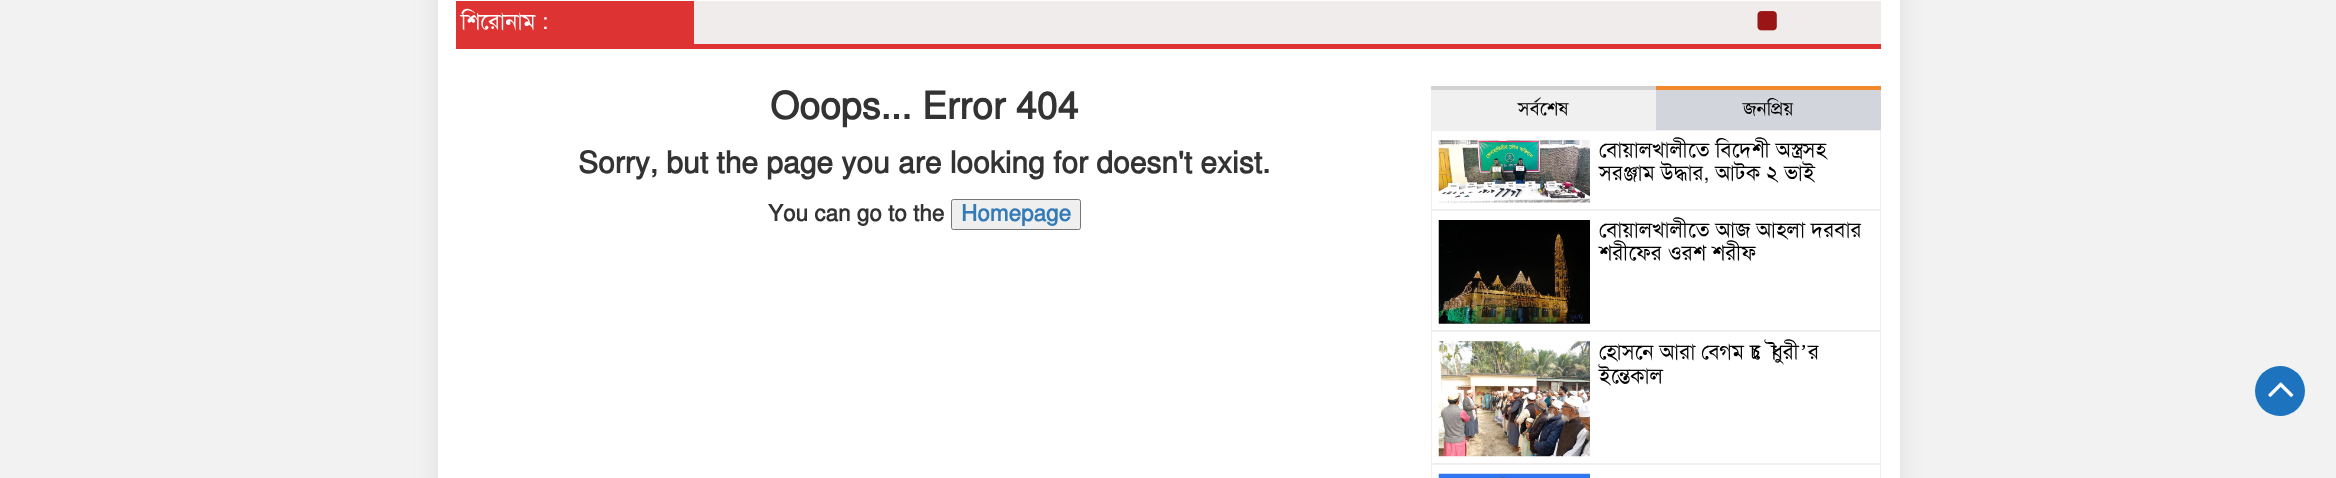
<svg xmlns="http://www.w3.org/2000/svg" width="2336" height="478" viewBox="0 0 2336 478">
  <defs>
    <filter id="blur1" x="-50%" y="-200%" width="200%" height="500%"><feGaussianBlur stdDeviation="12.5"/></filter>
  </defs>
  <rect width="100%" height="100%" fill="#f2f2f2"/>
  <rect x="438" y="-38" width="1462" height="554" fill="#dddddd" filter="url(#blur1)"/>
  <rect x="438" y="0" width="1462" height="478" fill="#ffffff"/>
  <rect x="456" y="1" width="238" height="48" fill="#dd3333"/>
  <text x="461" y="29" font-family="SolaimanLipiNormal" font-size="22.5" fill="#ffffff">শিরোনাম :</text>
  <rect x="694" y="1" width="1187" height="43" fill="#f0ecec"/>
  <rect x="694" y="44" width="1187" height="5" fill="#dd3333"/>
  <image x="1757" y="11" width="20" height="20" href="img1.png"/>
  <text x="770" y="119" font-family="SolaimanLipiNormal" font-size="37.5" font-weight="bold" fill="#333333">Ooops... Error 404</text>
  <text x="578" y="173" font-family="SolaimanLipiNormal" font-size="30" font-weight="bold" fill="#333333">Sorry, but the page you are looking for doesn't exist.</text>
  <text x="768" y="221" font-family="SolaimanLipiNormal" font-size="22.5" font-weight="bold" fill="#333333">You can go to the</text>
  <rect x="951.5" y="199.5" width="129" height="30" rx="2" fill="#efefef" stroke="#767676"/>
  <text x="961" y="221" font-family="SolaimanLipiNormal" font-size="22.5" font-weight="bold" fill="#337ab7">Homepage</text>
  <rect x="1656" y="90" width="225" height="40" fill="#d2d5db"/>
  <rect x="1431" y="90" width="225" height="40" fill="#f0f0f0"/>
  <rect x="1431" y="86" width="225" height="4" fill="#d2d2d2"/>
  <text x="1518" y="115" font-family="SolaimanLipiNormal" font-size="19" fill="#000000">সর্বশেষ</text>
  <rect x="1656" y="86" width="225" height="4" fill="#f28a2d"/>
  <text x="1743" y="115" font-family="SolaimanLipiNormal" font-size="19" fill="#000000">জনপ্রিয়</text>
  <rect x="1431.5" y="130.5" width="449" height="79" fill="none" stroke="#f0eeee"/>
  <image x="1438" y="140" width="152" height="63" href="img2.png"/>
  <text x="1599" y="157" font-family="SolaimanLipiNormal" font-size="21.25" fill="#000000">বোয়ালখালীতে বিদেশী অস্ত্রসহ</text>
  <text x="1599" y="180" font-family="SolaimanLipiNormal" font-size="21.25" fill="#000000">সরঞ্জাম উদ্ধার, আটক ২ ভাই</text>
  <rect x="1431.5" y="210.5" width="449" height="120" fill="none" stroke="#f0eeee"/>
  <image x="1438" y="220" width="152" height="104" href="img3.png"/>
  <text x="1599" y="237" font-family="SolaimanLipiNormal" font-size="21.25" fill="#000000">বোয়ালখালীতে আজ আহলা দরবার</text>
  <text x="1599" y="260" font-family="SolaimanLipiNormal" font-size="21.25" fill="#000000">শরীফের ওরশ শরীফ</text>
  <rect x="1431.5" y="331.5" width="449" height="132" fill="none" stroke="#f0eeee"/>
  <image x="1438" y="341" width="152" height="116" href="img4.png"/>
  <text x="1599" y="359" font-family="SolaimanLipiNormal" font-size="21.25" fill="#000000">হোসনে আরা বেগম চৌধুরী</text>
  <text x="1800" y="359" font-family="Liberation Serif" font-size="21.25" fill="#000000">’</text>
  <text x="1808" y="359" font-family="SolaimanLipiNormal" font-size="21.25" fill="#000000">র</text>
  <text x="1599" y="383" font-family="SolaimanLipiNormal" font-size="21.25" fill="#000000">ইন্তেকাল</text>
  <rect x="1431.5" y="464.5" width="449" height="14" fill="none" stroke="#f0eeee"/>
  <image x="1438" y="473" width="152" height="5" href="img5.png"/>
  <circle cx="2280" cy="391" r="25" fill="#1e73be"/>
  <image x="2268" y="382" width="26" height="15" href="img6.png"/>
</svg>
